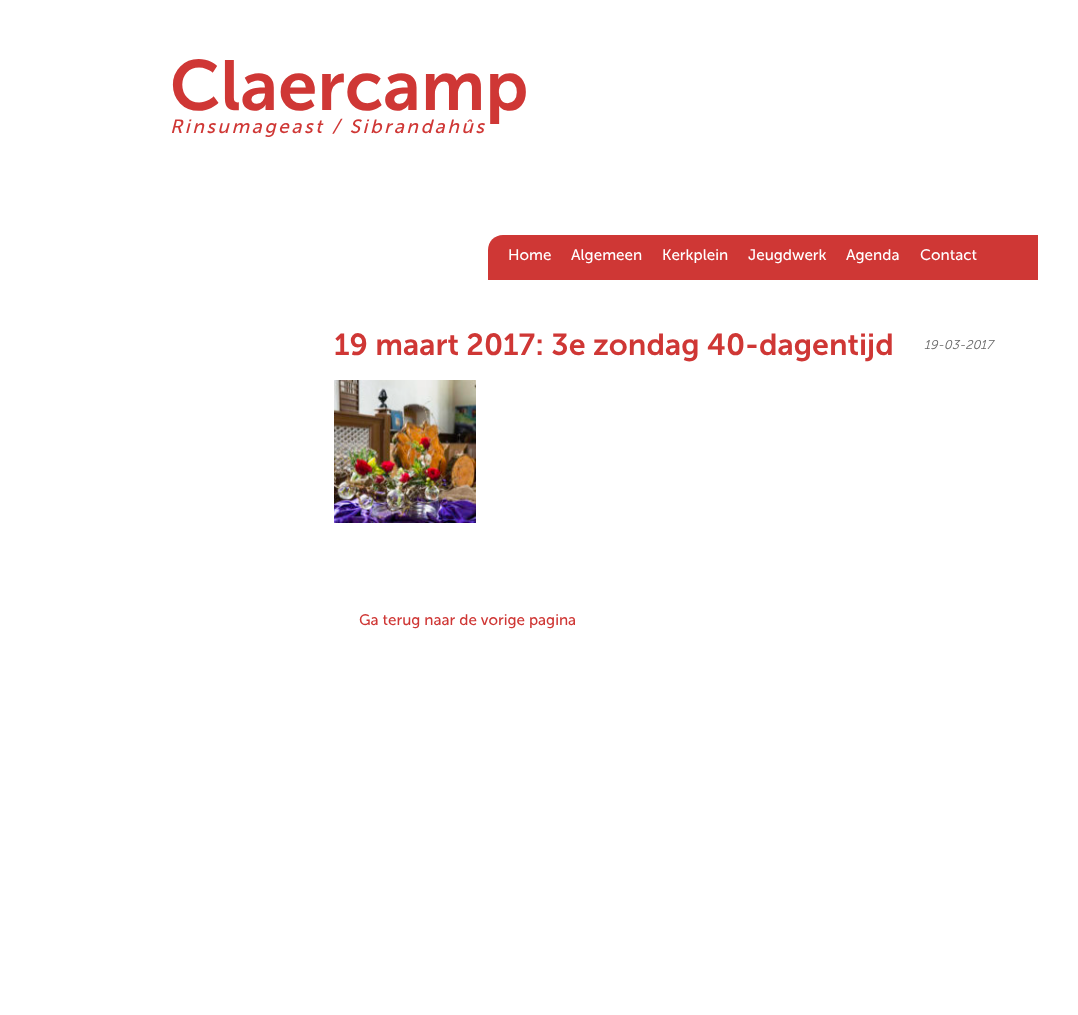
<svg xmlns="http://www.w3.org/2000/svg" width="1078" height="1015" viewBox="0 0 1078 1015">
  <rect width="100%" height="100%" fill="#ffffff"/>
  <text x="170" y="110" font-family="'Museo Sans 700'" font-size="70.5" font-weight="600" fill="#cf3735">Claercamp</text>
  <text x="170" y="133" font-family="'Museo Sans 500'" font-size="19.25" font-style="italic" letter-spacing="2.5" fill="#cf3735">Rinsumageast / Sibrandahûs</text>
  <path d="M503 235H1038V280H488V250C488 241.5 494.5 235 503 235Z" fill="#cf3735"/>
  <text x="508" y="260" font-family="'Museo Sans 500'" font-size="15.25" fill="#ffffff">Home</text>
  <text x="571" y="260" font-family="'Museo Sans 500'" font-size="15.25" fill="#ffffff">Algemeen</text>
  <text x="662" y="260" font-family="'Museo Sans 500'" font-size="15.25" fill="#ffffff">Kerkplein</text>
  <text x="748" y="260" font-family="'Museo Sans 500'" font-size="15.25" fill="#ffffff">Jeugdwerk</text>
  <text x="846" y="260" font-family="'Museo Sans 500'" font-size="15.25" fill="#ffffff">Agenda</text>
  <text x="920" y="260" font-family="'Museo Sans 500'" font-size="15.25" fill="#ffffff">Contact</text>
  <text x="334" y="355" font-family="'Museo Sans 700'" font-size="30.4" font-weight="600" fill="#cf3735">19 maart 2017: 3e zondag 40-dagentijd</text>
  <text x="924" y="349" font-family="'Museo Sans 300'" font-size="12.75" font-weight="300" font-style="italic" fill="#666666">19-03-2017</text>
  <image x="334" y="380" width="142" height="143" href="img1.png"/>
  <text x="359" y="625" font-family="'Museo Sans 500'" font-size="15.25" fill="#cf3735">Ga terug naar de vorige pagina</text>
</svg>
